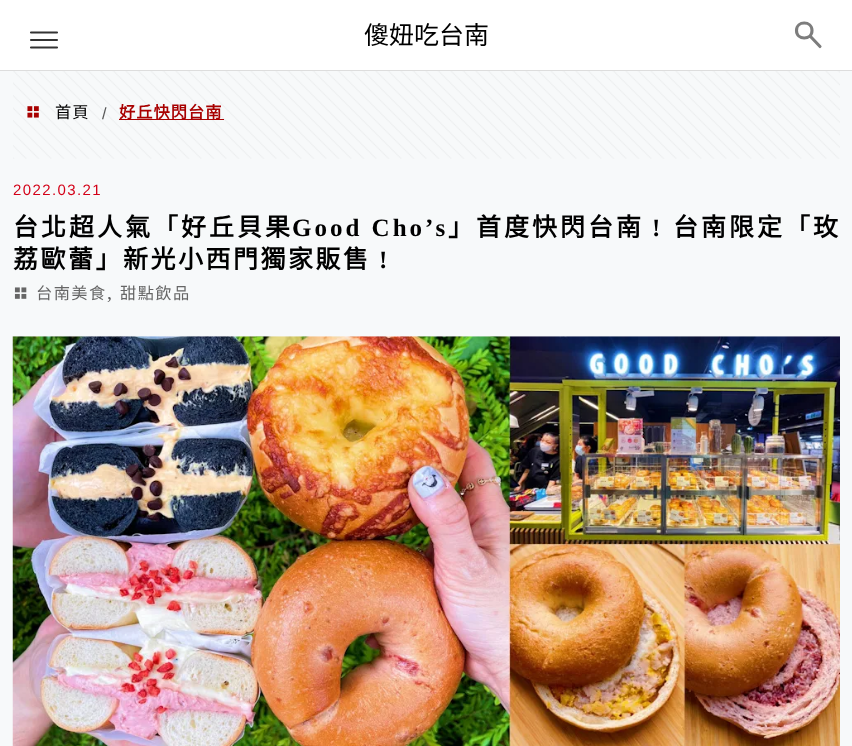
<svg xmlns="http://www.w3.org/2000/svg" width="852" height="746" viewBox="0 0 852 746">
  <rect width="100%" height="100%" fill="#f7f9fa"/>
  <rect x="0" y="0" width="852" height="70" fill="#ffffff"/>
  <rect x="0" y="70" width="852" height="1" fill="#dddddd"/>
  <path d="M31 32.5H57M31 40H57M31 47.5H57" fill="none" stroke="#333333" stroke-width="2.1" stroke-linecap="round"/>
  <path d="M810.5 36.5L820 46.5M812 30.5C812 40.5 796.5 40.5 796.5 30.5C796.5 20.5 812 20.5 812 30.5Z" fill="none" stroke="#7d7d7d" stroke-width="3.1" stroke-linecap="round"/>
  <text x="364" y="44" font-family="Noto Sans CJK TC" font-size="25" fill="#000000">傻妞吃台南</text>
  <image x="13" y="71" width="827" height="88" href="img1.png"/>
  <image x="27" y="106" width="12" height="12" href="img2.png"/>
  <text x="55" y="118" font-family="Noto Sans CJK TC" font-size="16.25" letter-spacing="1" fill="#000000">首頁</text>
  <text x="102" y="119" font-family="Liberation Sans" font-size="16.25" letter-spacing="1" fill="#555555">/</text>
  <rect x="119" y="119" width="105" height="1" fill="#a80000"/>
  <text x="119" y="118" font-family="Noto Sans CJK TC" font-size="16.25" font-weight="bold" letter-spacing="1" fill="#a80000">好丘快閃台南</text>
  <text x="13" y="195" font-family="Liberation Sans" font-size="15" letter-spacing="1.4" fill="#d30017">2022.03.21</text>
  <text x="13" y="236" font-family="Noto Sans CJK TC" font-size="25" font-weight="bold" letter-spacing="3" fill="#000000">台北超人氣「好丘貝果</text>
  <text x="292" y="236" font-family="Liberation Serif" font-size="25" font-weight="bold" letter-spacing="3" fill="#000000">Good Cho’s</text>
  <text x="448" y="236" font-family="Noto Sans CJK TC" font-size="25" font-weight="bold" letter-spacing="3" fill="#000000">」首度快閃台南</text>
  <text x="652" y="236" font-family="Liberation Serif" font-size="25" font-weight="bold" letter-spacing="3" fill="#000000">!</text>
  <text x="673" y="236" font-family="Noto Sans CJK TC" font-size="25" font-weight="bold" letter-spacing="3" fill="#000000">台南限定「玫</text>
  <text x="13" y="268" font-family="Noto Sans CJK TC" font-size="25" font-weight="bold" letter-spacing="2.5" fill="#000000">荔歐蕾」新光小西門獨家販售</text>
  <text x="379" y="268" font-family="Liberation Serif" font-size="25" font-weight="bold" letter-spacing="2.5" fill="#000000">!</text>
  <image x="14" y="287" width="13" height="12" href="img3.png"/>
  <text x="36" y="299" font-family="Noto Sans CJK TC" font-size="16.25" letter-spacing="1.4" fill="#666666">台南美食</text>
  <text x="107" y="299" font-family="Liberation Serif" font-size="20" letter-spacing="1.4" fill="#555555">,</text>
  <text x="120" y="299" font-family="Noto Sans CJK TC" font-size="16.25" letter-spacing="1.4" fill="#666666">甜點飲品</text>
  <image x="12" y="336" width="828" height="410" href="img4.png"/>
</svg>
